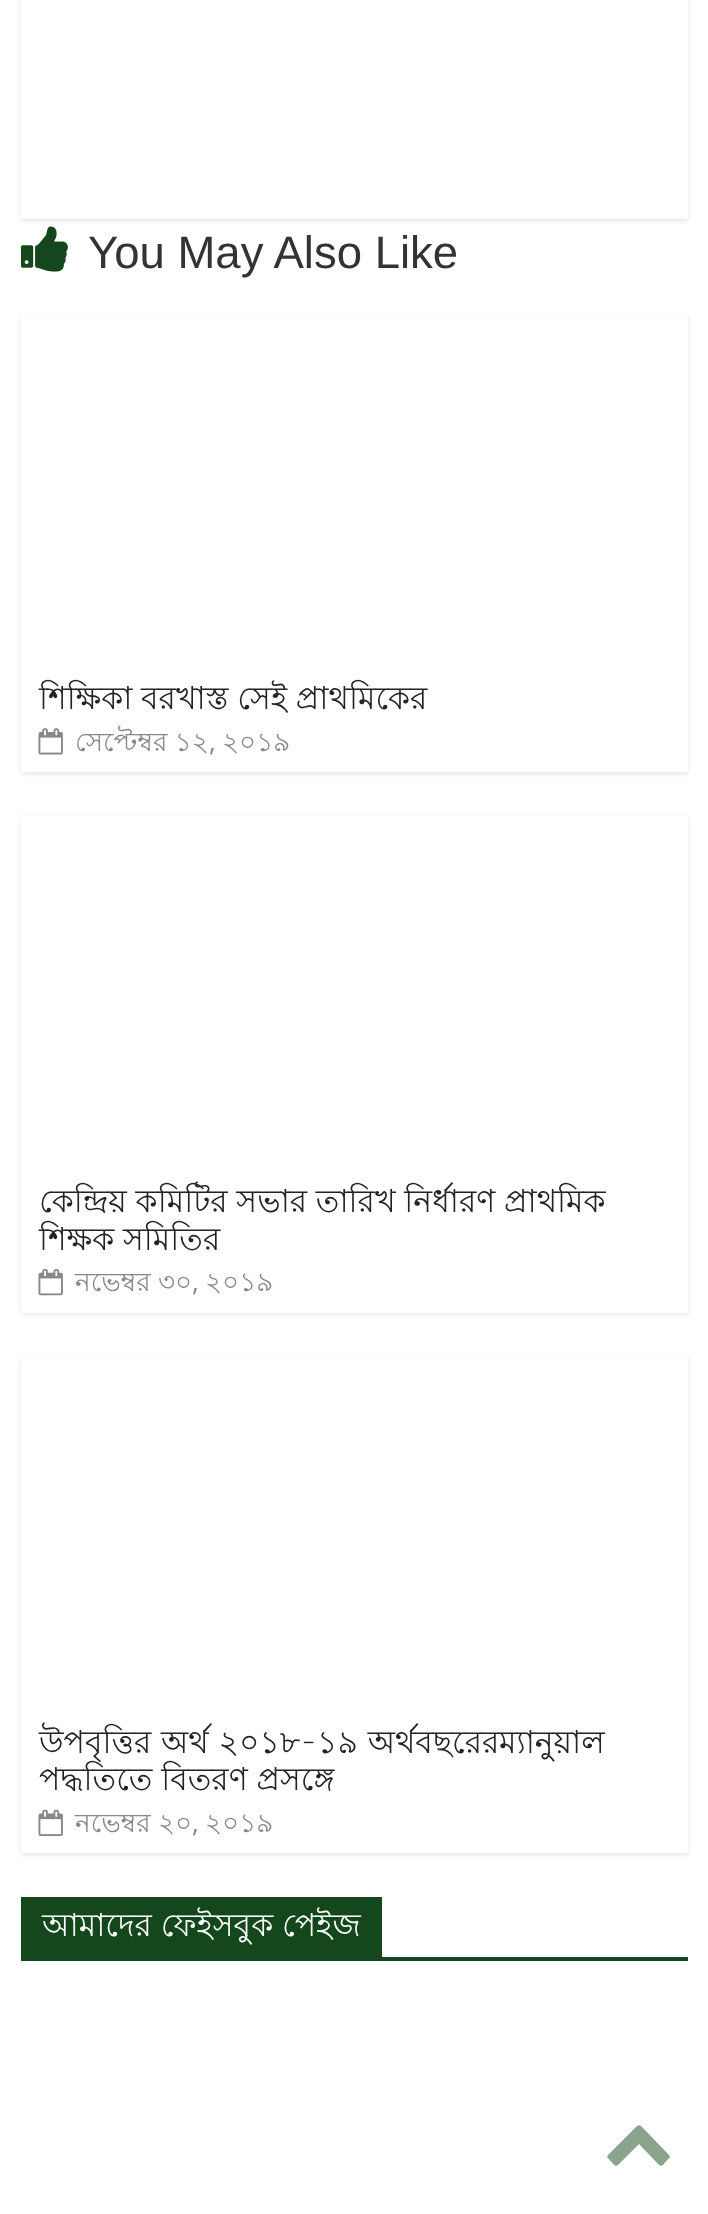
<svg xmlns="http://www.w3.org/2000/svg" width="708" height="2214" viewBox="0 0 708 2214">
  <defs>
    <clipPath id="clip1"><path d="M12 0H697V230H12ZM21-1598H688V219H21Z" clip-rule="evenodd"/></clipPath>
    <filter id="blur1" x="-50%" y="-200%" width="200%" height="500%"><feGaussianBlur stdDeviation="2.5"/></filter>
    <clipPath id="clip2"><path d="M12 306H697V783H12ZM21 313H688V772H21Z" clip-rule="evenodd"/></clipPath>
    <clipPath id="clip3"><path d="M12 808H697V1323H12ZM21 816H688V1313H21Z" clip-rule="evenodd"/></clipPath>
    <clipPath id="clip4"><path d="M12 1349H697V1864H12ZM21 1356H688V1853H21Z" clip-rule="evenodd"/></clipPath>
  </defs>
  <rect width="100%" height="100%" fill="#ffffff"/>
  <g clip-path="url(#clip1)">
    <rect x="21" y="-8" width="667" height="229" fill="#000000" fill-opacity="0.1" filter="url(#blur1)"/>
  </g>
  <image x="21" y="226" width="47" height="46" href="img1.png"/>
  <text x="88" y="268" font-family="Liberation Sans" font-size="45.5" fill="#333333">You May Also Like</text>
  <g clip-path="url(#clip2)">
    <rect x="21" y="315" width="667" height="459" fill="#000000" fill-opacity="0.1" filter="url(#blur1)"/>
  </g>
  <text x="39" y="709" font-family="Lohit Bengali" font-size="31.5" fill="#232323">শিক্ষিকা বরখাস্ত সেই প্রাথমিকের</text>
  <image x="38" y="728" width="25" height="27" href="img2.png"/>
  <text x="75" y="751" font-family="Lohit Bengali" font-size="26.25" fill="#888888">সেপ্টেম্বর ১২</text>
  <text x="209" y="751" font-family="Open Sans" font-size="26.25" fill="#888888">,</text>
  <text x="222" y="751" font-family="Lohit Bengali" font-size="26.25" fill="#888888">২০১৯</text>
  <g clip-path="url(#clip3)">
    <rect x="21" y="817" width="667" height="497" fill="#000000" fill-opacity="0.1" filter="url(#blur1)"/>
  </g>
  <text x="39" y="1212" font-family="Lohit Bengali" font-size="31.5" fill="#232323">কেন্দ্রিয় কমিটির সভার তারিখ নির্ধারণ প্রাথমিক</text>
  <text x="39" y="1250" font-family="Lohit Bengali" font-size="31.5" fill="#232323">শিক্ষক সমিতির</text>
  <image x="38" y="1269" width="25" height="27" href="img3.png"/>
  <text x="75" y="1291" font-family="Lohit Bengali" font-size="26.25" fill="#888888">নভেম্বর ৩০</text>
  <text x="192" y="1291" font-family="Open Sans" font-size="26.25" fill="#888888">,</text>
  <text x="205" y="1291" font-family="Lohit Bengali" font-size="26.25" fill="#888888">২০১৯</text>
  <g clip-path="url(#clip4)">
    <rect x="21" y="1358" width="667" height="497" fill="#000000" fill-opacity="0.1" filter="url(#blur1)"/>
  </g>
  <text x="39" y="1753" word-spacing="1" font-family="Lohit Bengali" font-size="31.5" fill="#232323">উপবৃত্তির অর্থ ২০১৮-১৯ অর্থবছরের</text>
  <text x="499" y="1753" font-family="Lohit Bengali" font-size="31.5" fill="#232323">ম্যানুয়াল</text>
  <text x="39" y="1790" font-family="Lohit Bengali" font-size="31.5" fill="#232323">পদ্ধতিতে বিতরণ প্রসঙ্গে</text>
  <image x="38" y="1809" width="25" height="27" href="img4.png"/>
  <text x="75" y="1832" font-family="Lohit Bengali" font-size="26.25" fill="#888888">নভেম্বর ২০</text>
  <text x="192" y="1832" font-family="Open Sans" font-size="26.25" fill="#888888">,</text>
  <text x="205" y="1832" font-family="Lohit Bengali" font-size="26.25" fill="#888888">২০১৯</text>
  <rect x="21" y="1957" width="667" height="4" fill="#15471c"/>
  <rect x="21" y="1897" width="361" height="60" fill="#15471c"/>
  <text x="42" y="1936" font-family="Lohit Bengali" font-size="31.5" fill="#ffffff">আমাদের ফেইসবুক পেইজ</text>
  <path d="M669 2158C670 2158 670 2156 669 2155L641 2126C640 2125 638 2125 637 2126L608 2155C607 2156 607 2158 608 2158L614 2165C615 2166 617 2166 618 2165L639 2144L659 2165C660 2166 662 2166 663 2165Z" fill="#8aa38e"/>
</svg>
